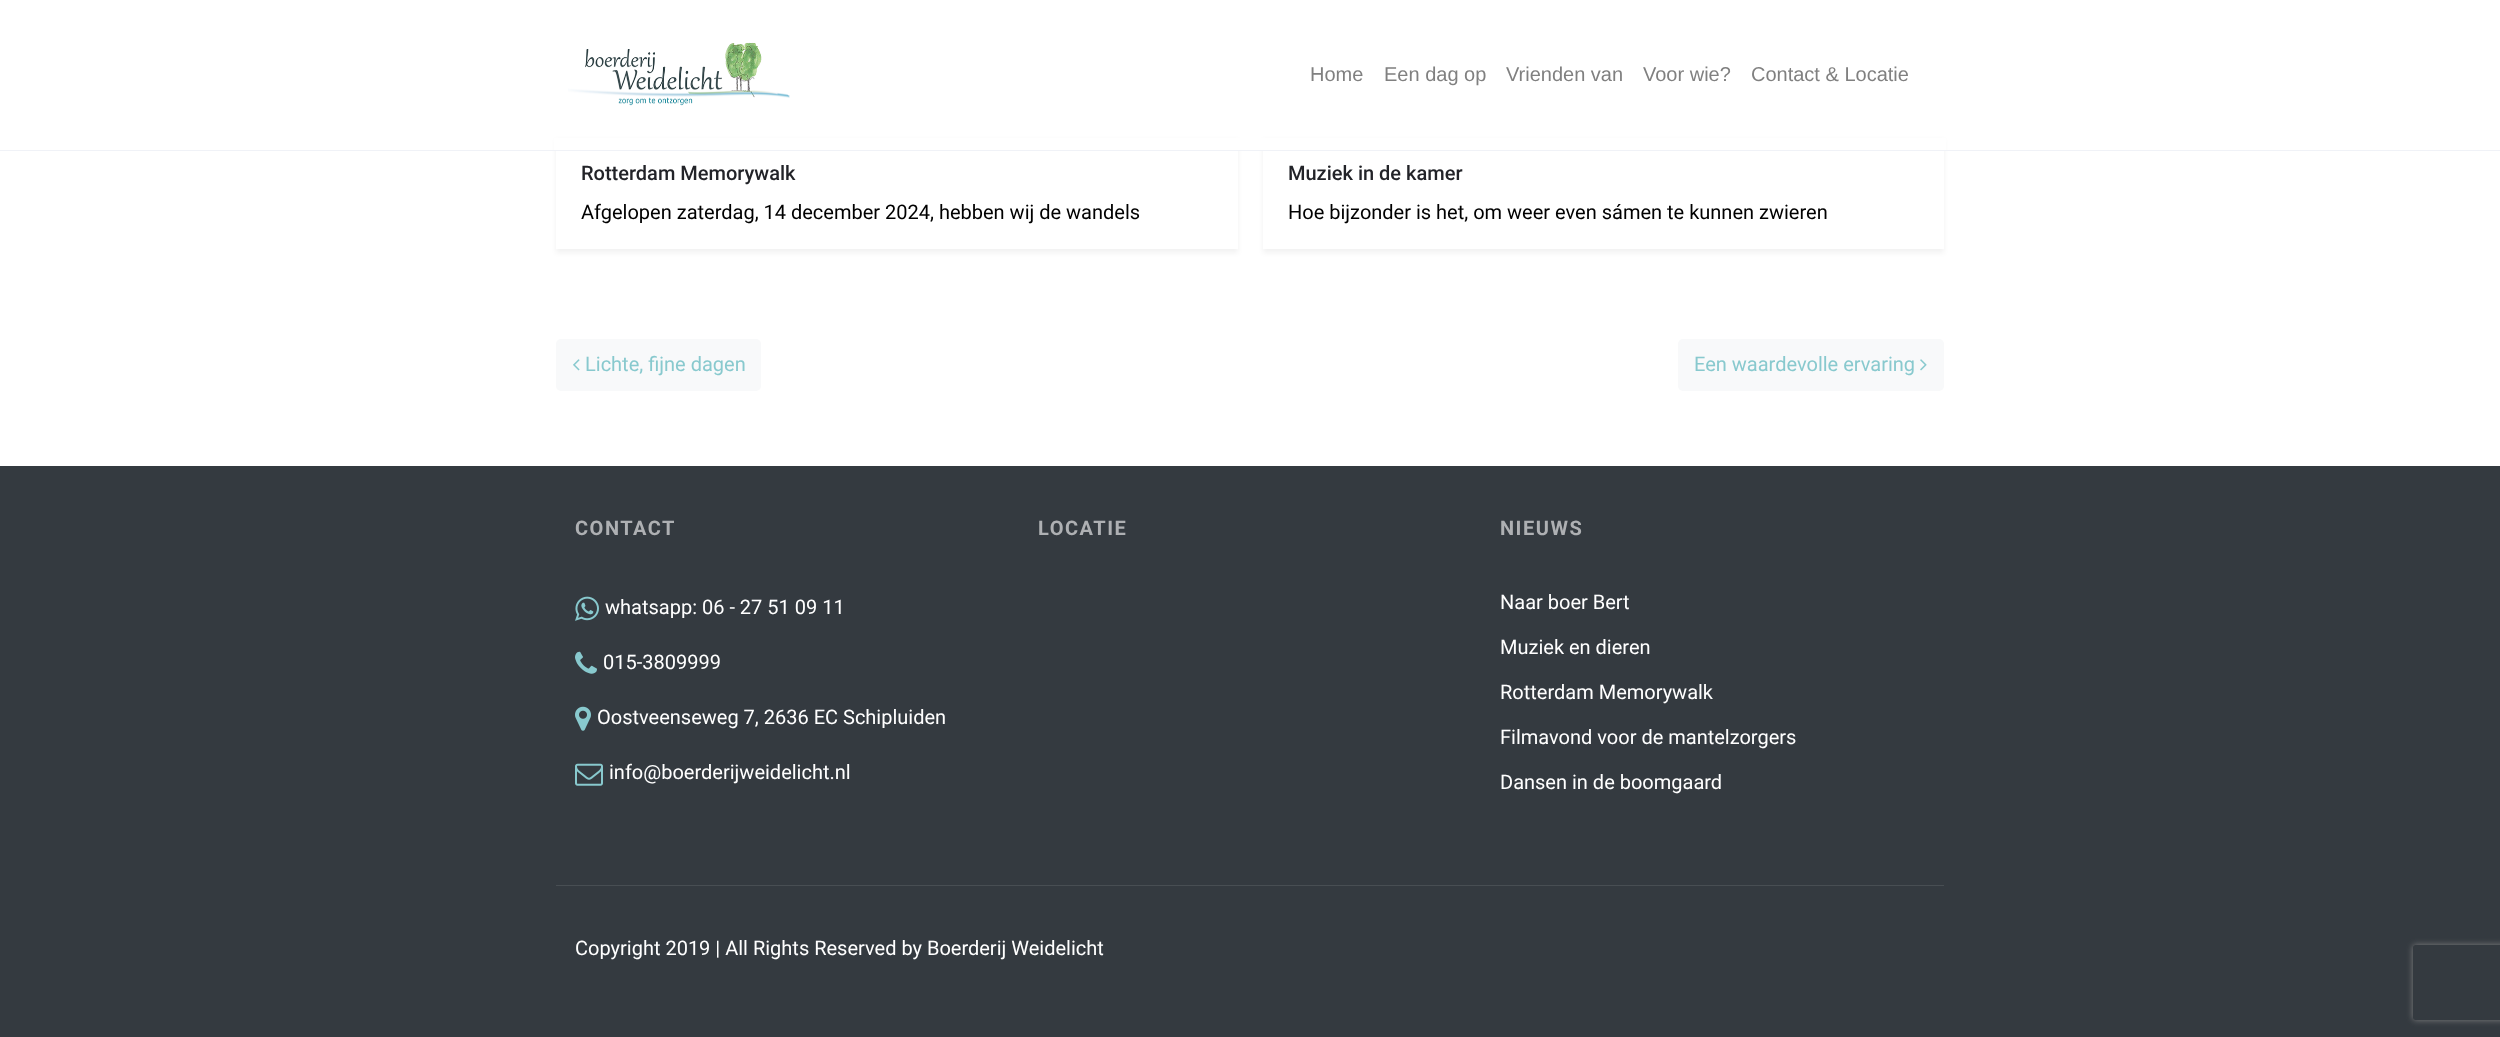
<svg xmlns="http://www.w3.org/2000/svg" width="2500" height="1037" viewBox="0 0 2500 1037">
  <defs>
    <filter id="blur1" x="-50%" y="-200%" width="200%" height="500%"><feGaussianBlur stdDeviation="2.5"/></filter>
    <clipPath id="clip1"><path d="M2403 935H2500V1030H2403ZM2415.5 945H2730.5C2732 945 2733 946 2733 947.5V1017.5C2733 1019 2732 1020 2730.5 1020H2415.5C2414 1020 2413 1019 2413 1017.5V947.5C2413 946 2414 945 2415.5 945Z" clip-rule="evenodd"/></clipPath>
    <filter id="blur2" x="-50%" y="-200%" width="200%" height="500%"><feGaussianBlur stdDeviation="3"/></filter>
  </defs>
  <rect width="100%" height="100%" fill="#ffffff"/>
  <rect x="556" y="140" width="682" height="113" fill="#000000" fill-opacity="0.05" filter="url(#blur1)"/>
  <rect x="1263" y="140" width="681" height="113" fill="#000000" fill-opacity="0.05" filter="url(#blur1)"/>
  <rect x="554" y="138" width="1392" height="12" fill="#ffffff"/>
  <rect x="0" y="150" width="2500" height="1" fill="#f0f2f7"/>
  <image x="568" y="42" width="222" height="64" href="img1.png"/>
  <text x="1310" y="81" font-family="Liberation Sans" font-size="20" fill="#808080">Home</text>
  <text x="1384" y="81" font-family="Liberation Sans" font-size="20" fill="#808080">Een dag op</text>
  <text x="1506" y="81" font-family="Liberation Sans" font-size="20" fill="#808080">Vrienden van</text>
  <text x="1643" y="81" font-family="Liberation Sans" font-size="20" fill="#808080">Voor wie?</text>
  <text x="1751" y="81" font-family="Liberation Sans" font-size="20" fill="#808080">Contact &amp; Locatie</text>
  <rect x="556" y="151" width="682" height="98" fill="#ffffff"/>
  <text x="581" y="180" font-family="Roboto" font-size="20" font-weight="500" fill="#222328">Rotterdam Memorywalk</text>
  <text x="581" y="219" font-family="Roboto" font-size="20" fill="#000000">Afgelopen zaterdag, 14 december 2024, hebben wij de wandels</text>
  <rect x="1263" y="151" width="681" height="98" fill="#ffffff"/>
  <text x="1288" y="180" font-family="Roboto" font-size="20" font-weight="500" fill="#222328">Muziek in de kamer</text>
  <text x="1288" y="219" font-family="Roboto" font-size="20" fill="#000000">Hoe bijzonder is het, om weer even sámen te kunnen zwieren</text>
  <rect x="556" y="339" width="205" height="52" rx="5" fill="#f8f9fa"/>
  <image x="573" y="359" width="7" height="12" href="img2.png"/>
  <text x="585" y="371" font-family="Roboto" font-size="20" fill="#88c9ce">Lichte, fijne dagen</text>
  <rect x="1678" y="339" width="266" height="52" rx="5" fill="#f8f9fa"/>
  <text x="1694" y="371" font-family="Roboto" font-size="20" fill="#88c9ce">Een waardevolle ervaring</text>
  <image x="1920" y="359" width="7" height="12" href="img3.png"/>
  <rect x="0" y="466" width="2500" height="571" fill="#343a40"/>
  <rect x="556" y="885" width="1388" height="1" fill="#484e53"/>
  <text x="575" y="535" font-family="Roboto" font-size="20" font-weight="bold" letter-spacing="1.5" fill="#aeb0b3">CONTACT</text>
  <image x="575" y="596" width="24" height="25" href="img4.png"/>
  <text x="605" y="614" font-family="Roboto" font-size="20" fill="#ffffff">whatsapp: 06 - 27 51 09 11</text>
  <image x="575" y="651" width="22" height="23" href="img5.png"/>
  <text x="603" y="669" font-family="Roboto" font-size="20" fill="#ffffff">015-3809999</text>
  <image x="575" y="706" width="16" height="25" href="img6.png"/>
  <text x="597" y="724" font-family="Roboto" font-size="20" fill="#ffffff">Oostveenseweg 7, 2636 EC Schipluiden</text>
  <image x="575" y="763" width="28" height="23" href="img7.png"/>
  <text x="609" y="779" font-family="Roboto" font-size="20" fill="#ffffff">info@boerderijweidelicht.nl</text>
  <text x="1038" y="535" font-family="Roboto" font-size="20" font-weight="bold" letter-spacing="1.5" fill="#aeb0b3">LOCATIE</text>
  <text x="1500" y="535" font-family="Roboto" font-size="20" font-weight="bold" letter-spacing="1.5" fill="#aeb0b3">NIEUWS</text>
  <text x="1500" y="609" font-family="Roboto" font-size="20" fill="#ffffff">Naar boer Bert</text>
  <text x="1500" y="654" font-family="Roboto" font-size="20" fill="#ffffff">Muziek en dieren</text>
  <text x="1500" y="699" font-family="Roboto" font-size="20" fill="#ffffff">Rotterdam Memorywalk</text>
  <text x="1500" y="744" font-family="Roboto" font-size="20" fill="#ffffff">Filmavond voor de mantelzorgers</text>
  <text x="1500" y="789" font-family="Roboto" font-size="20" fill="#ffffff">Dansen in de boomgaard</text>
  <text x="575" y="955" font-family="Roboto" font-size="20" fill="#ffffff">Copyright 2019 | All Rights Reserved by Boerderij Weidelicht</text>
  <g clip-path="url(#clip1)">
    <rect x="2413" y="945" width="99" height="75" rx="2.5" fill="#808080" filter="url(#blur2)"/>
  </g>
</svg>
